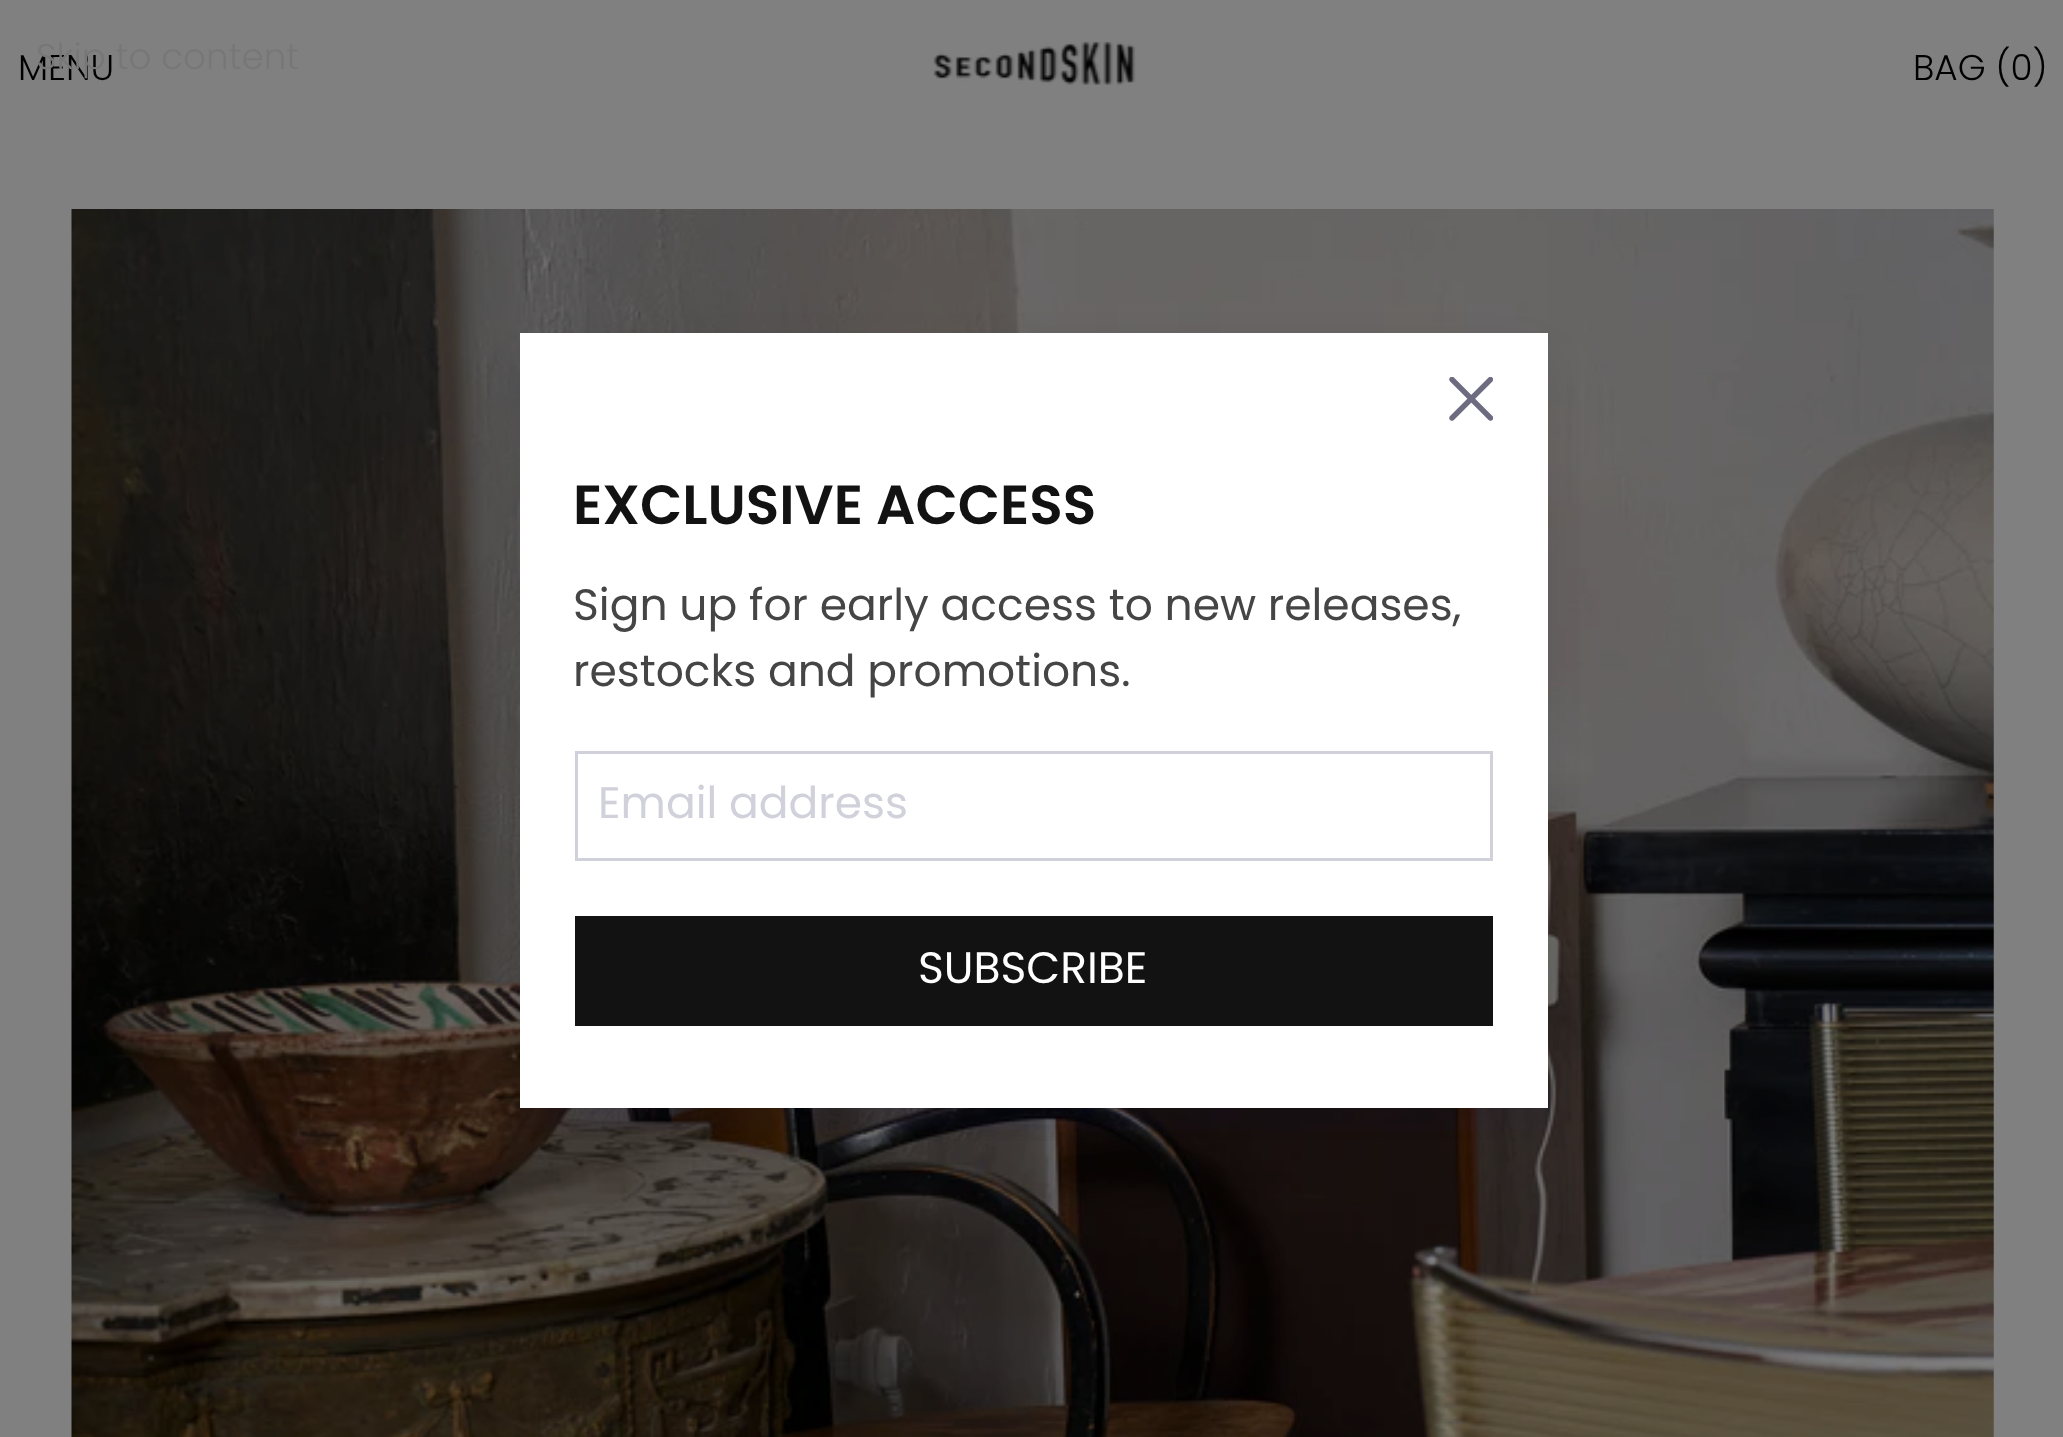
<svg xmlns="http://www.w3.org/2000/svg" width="2063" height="1437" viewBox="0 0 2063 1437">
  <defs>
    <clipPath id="clip1"><rect x="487" y="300" width="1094" height="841"/></clipPath>
    <filter id="blur1" x="-50%" y="-200%" width="200%" height="500%"><feGaussianBlur stdDeviation="27.5"/></filter>
  </defs>
  <rect width="100%" height="100%" fill="#808080"/>
  <text x="18" y="80" font-family="Poppins" font-size="35.75" font-weight="300" fill="#000000">MENU</text>
  <text x="36" y="69" font-family="Poppins" font-size="35.75" font-weight="300" fill="#777777">Skip to content</text>
  <image x="933" y="41" width="203" height="44" href="img1.png"/>
  <text x="1913" y="80" font-family="Poppins" font-size="35.75" font-weight="300" fill="#000000">BAG (0)</text>
  <image x="71" y="209" width="1923" height="1228" href="img2.png"/>
  <g clip-path="url(#clip1)">
    <rect x="520" y="355" width="1028" height="775" fill="#121127" fill-opacity="0.1" filter="url(#blur1)"/>
  </g>
  <rect x="520" y="333" width="1028" height="775" fill="#ffffff"/>
  <image x="1449" y="377" width="44" height="44" href="img3.png"/>
  <text x="573" y="524" font-family="Poppins" font-size="55" font-weight="600" fill="#121212">EXCLUSIVE ACCESS</text>
  <text x="573" y="620" font-family="Poppins" font-size="44" fill="#454545">Sign up for early access to new releases, </text>
  <text x="573" y="686" font-family="Poppins" font-size="44" fill="#454545">restocks and promotions.</text>
  <rect x="576.5" y="752.5" width="915" height="107" fill="none" stroke="#d1d1db" stroke-width="3"/>
  <text x="598" y="818" font-family="Poppins" font-size="44" fill="#d1d1db">Email address</text>
  <rect x="575" y="916" width="918" height="110" fill="#121212"/>
  <text x="918" y="983" font-family="Poppins" font-size="44" fill="#ffffff">SUBSCRIBE</text>
</svg>
